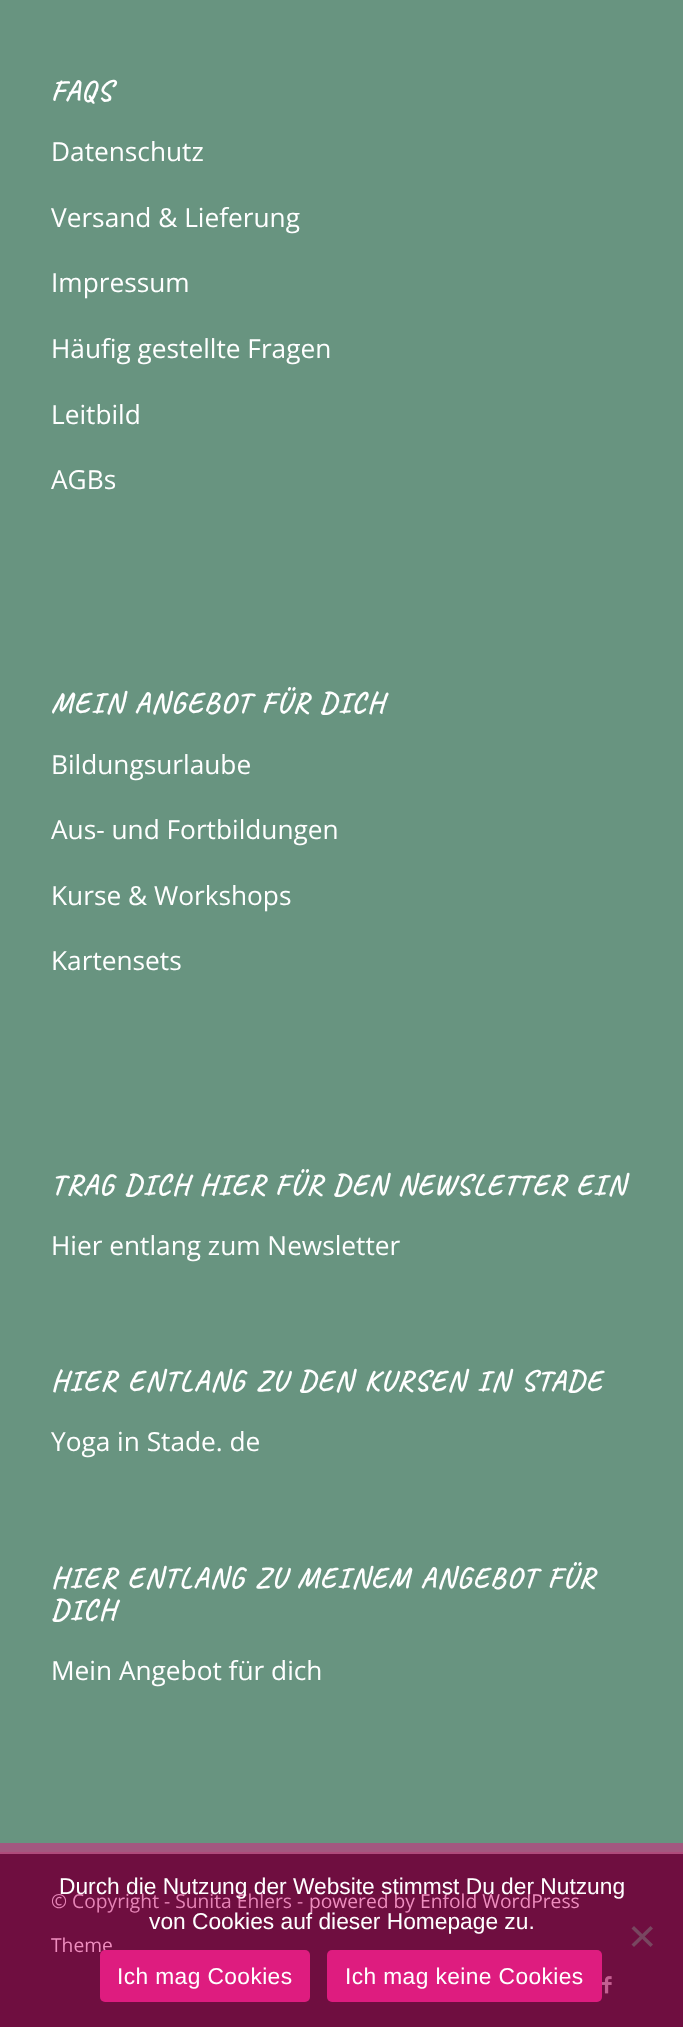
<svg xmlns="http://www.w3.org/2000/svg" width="683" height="2027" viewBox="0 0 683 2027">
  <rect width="100%" height="100%" fill="#689480"/>
  <rect x="0" y="1843" width="683" height="9" fill="#a35880"/>
  <text x="51" y="100" font-family="Caveat" font-size="28.9" font-weight="bold" letter-spacing="1.75" fill="#ffffff">FAQS</text>
  <text x="51" y="161" font-family="Open Sans" font-size="26.25" fill="#ffffff">Datenschutz</text>
  <text x="51" y="227" font-family="Open Sans" font-size="26.25" fill="#ffffff">Versand &amp; Lieferung</text>
  <text x="51" y="292" font-family="Open Sans" font-size="26.25" fill="#ffffff">Impressum</text>
  <text x="51" y="358" font-family="Open Sans" font-size="26.25" fill="#ffffff">Häufig gestellte Fragen</text>
  <text x="51" y="424" font-family="Open Sans" font-size="26.25" fill="#ffffff">Leitbild</text>
  <text x="51" y="489" font-family="Open Sans" font-size="26.25" fill="#ffffff">AGBs</text>
  <text x="51" y="712" word-spacing="1" font-family="Caveat" font-size="28.9" font-weight="bold" letter-spacing="1.75" fill="#ffffff">MEIN ANGEBOT FÜR DICH</text>
  <text x="51" y="774" font-family="Open Sans" font-size="26.25" fill="#ffffff">Bildungsurlaube</text>
  <text x="51" y="839" font-family="Open Sans" font-size="26.25" fill="#ffffff">Aus- und Fortbildungen</text>
  <text x="51" y="905" font-family="Open Sans" font-size="26.25" fill="#ffffff">Kurse &amp; Workshops</text>
  <text x="51" y="970" font-family="Open Sans" font-size="26.25" fill="#ffffff">Kartensets</text>
  <text x="51" y="1194" word-spacing="0.5" font-family="Caveat" font-size="28.9" font-weight="bold" letter-spacing="1.75" fill="#ffffff">TRAG DICH HIER FÜR DEN NEWSLETTER EIN</text>
  <text x="51" y="1255" font-family="Open Sans" font-size="26.25" fill="#ffffff">Hier entlang zum Newsletter</text>
  <text x="51" y="1390" word-spacing="1.5" font-family="Caveat" font-size="28.9" font-weight="bold" letter-spacing="1.75" fill="#ffffff">HIER ENTLANG ZU DEN KURSEN IN STADE</text>
  <text x="51" y="1451" font-family="Open Sans" font-size="26.25" fill="#ffffff">Yoga in Stade. de</text>
  <text x="51" y="1587" word-spacing="1" font-family="Caveat" font-size="28.9" font-weight="bold" letter-spacing="1.75" fill="#ffffff">HIER ENTLANG ZU MEINEM ANGEBOT FÜR</text>
  <text x="51" y="1619" font-family="Caveat" font-size="28.9" font-weight="bold" letter-spacing="1.75" fill="#ffffff">DICH</text>
  <text x="51" y="1680" font-family="Open Sans" font-size="26.25" fill="#ffffff">Mein Angebot für dich</text>
  <rect x="0" y="1854" width="683" height="173" fill="#6f0e40"/>
  <rect x="0" y="1852" width="683" height="2" fill="#af4a7b"/>
  <text x="51" y="1908" font-family="Open Sans" font-size="19.25" fill="#e685b7">© Copyright - Sunita Ehlers -</text>
  <text x="309" y="1908" font-family="Open Sans" font-size="19.25" fill="#ef8ebf">powered by Enfold WordPress</text>
  <text x="51" y="1952" font-family="Open Sans" font-size="19.25" fill="#ef8ebf">Theme</text>
  <image x="602" y="1976" width="10" height="18" href="img1.png"/>
  <text x="59" y="1894" font-family="Liberation Sans" font-size="22.75" fill="#ffffff">Durch die Nutzung der Website stimmst Du der Nutzung</text>
  <text x="149" y="1929" font-family="Liberation Sans" font-size="22.75" fill="#ffffff">von Cookies auf dieser Homepage zu.</text>
  <path d="M650.5 1926L653 1928.5L634 1947L631.5 1944.5Z" fill="#784760"/>
  <path d="M631.5 1928.5L634 1926L653 1944.5L650.5 1947Z" fill="#784760"/>
  <rect x="100" y="1950" width="210" height="52" rx="5" fill="#de1c7f"/>
  <text x="117" y="1984" font-family="Liberation Sans" font-size="22.75" letter-spacing="0.4" fill="#ffffff">Ich mag Cookies</text>
  <rect x="327" y="1950" width="275" height="52" rx="5" fill="#de1c7f"/>
  <text x="345" y="1984" font-family="Liberation Sans" font-size="22.75" letter-spacing="0.4" fill="#ffffff">Ich mag keine Cookies</text>
</svg>
